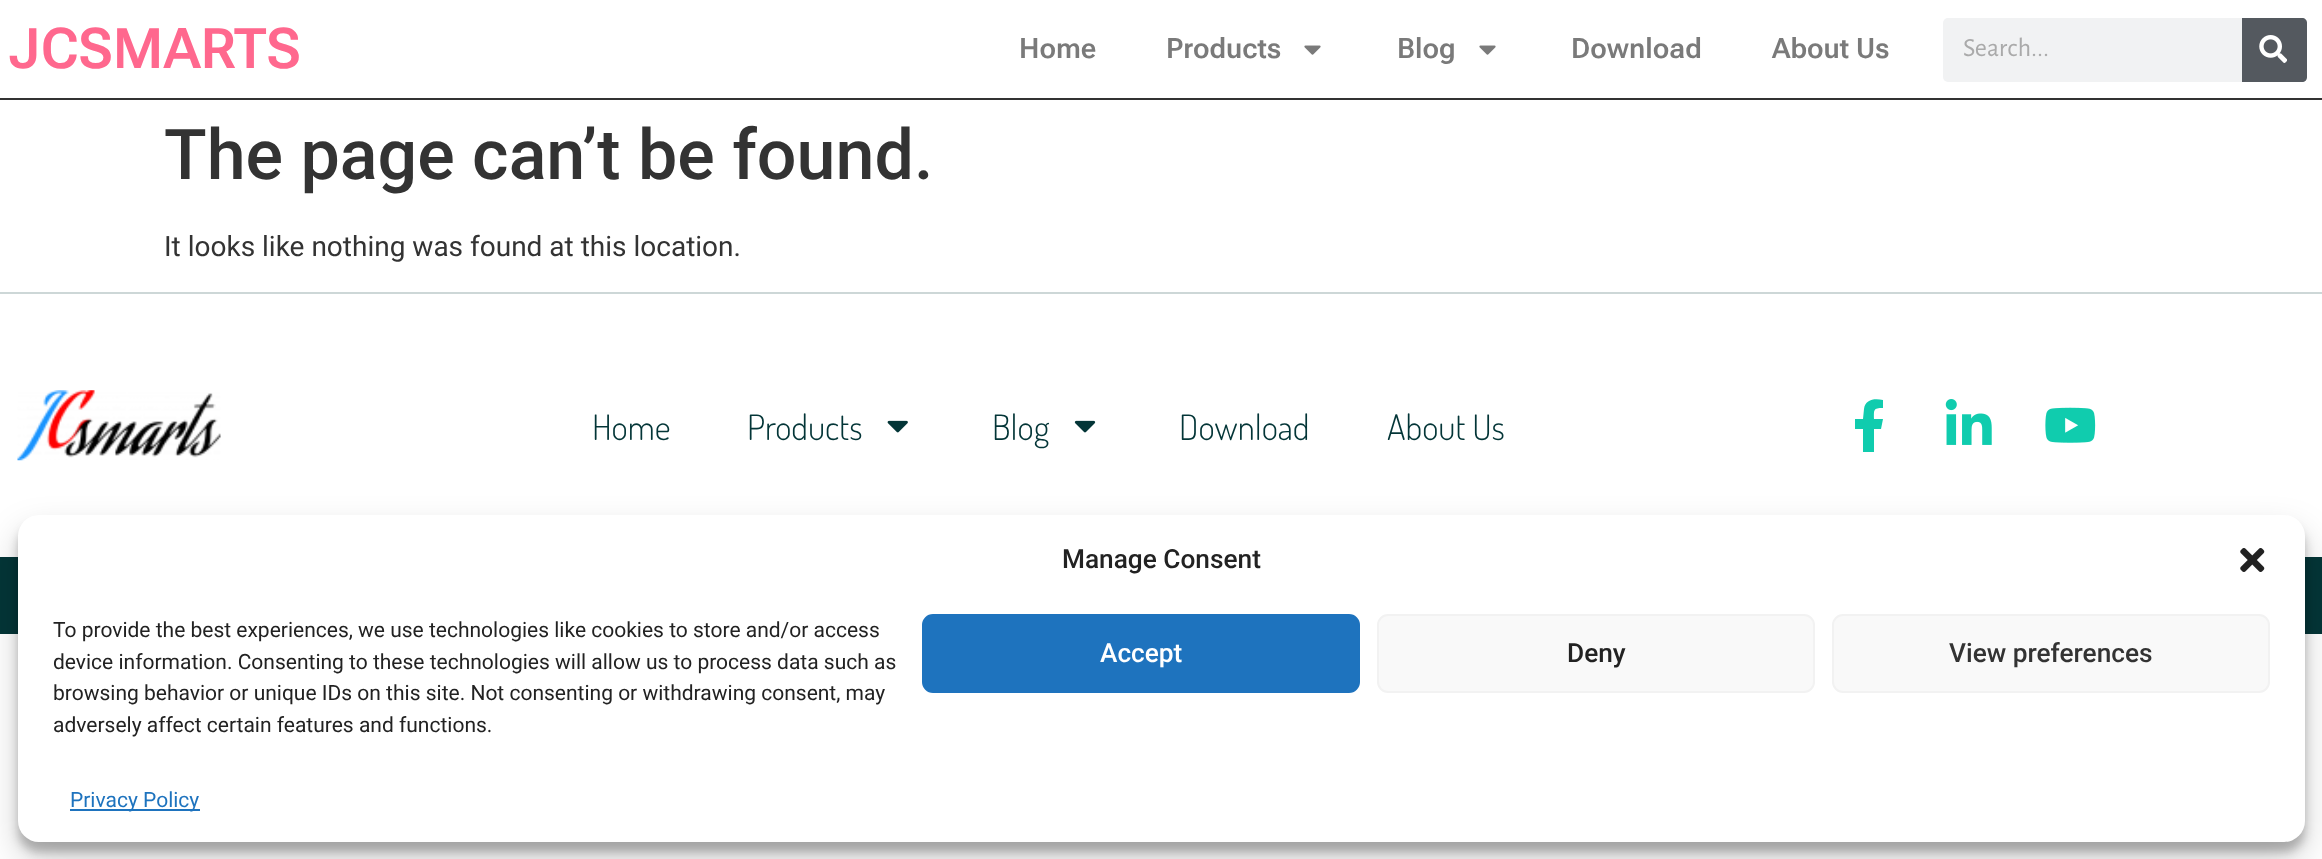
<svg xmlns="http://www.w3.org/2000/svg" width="2322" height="859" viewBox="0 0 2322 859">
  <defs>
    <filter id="blur1" x="-50%" y="-200%" width="200%" height="500%"><feGaussianBlur stdDeviation="5"/></filter>
    <filter id="blur2" x="-50%" y="-200%" width="200%" height="500%"><feGaussianBlur stdDeviation="17.5"/></filter>
  </defs>
  <rect width="100%" height="100%" fill="#ffffff"/>
  <rect x="0" y="98" width="2322" height="2" fill="#333333"/>
  <text x="9" y="68" font-family="Roboto Flex" font-size="56" font-weight="600" fill="#ff688e">JCSMARTS</text>
  <text x="1019" y="58" font-family="Roboto Flex" font-size="28" font-weight="600" fill="#7a7a7a">Home</text>
  <text x="1166" y="58" font-family="Roboto Flex" font-size="28" font-weight="600" fill="#7a7a7a">Products</text>
  <image x="1304" y="45" width="17" height="10" href="img1.png"/>
  <text x="1397" y="58" font-family="Roboto Flex" font-size="28" font-weight="600" fill="#7a7a7a">Blog</text>
  <image x="1479" y="45" width="17" height="10" href="img1.png"/>
  <text x="1571" y="58" font-family="Roboto Flex" font-size="28" font-weight="600" fill="#7a7a7a">Download</text>
  <text x="1772" y="58" font-family="Roboto Flex" font-size="28" font-weight="600" fill="#7a7a7a">About Us</text>
  <rect x="1943" y="18" width="364" height="64" rx="5" fill="#f1f2f3"/>
  <text x="1963" y="56" font-family="Alegreya Sans" font-size="26.25" fill="#aaaaaa">Search...</text>
  <path d="M2242 18H2302C2305 18 2307 20 2307 23V77C2307 80 2305 82 2302 82H2242Z" fill="#54595f"/>
  <image x="2259" y="35" width="28" height="28" href="img2.png"/>
  <text x="164" y="179" font-family="Roboto" font-size="70" font-weight="500" fill="#333333">The page can’t be found.</text>
  <text x="164" y="256" font-family="Roboto" font-size="28" fill="#333333">It looks like nothing was found at this location.</text>
  <rect x="0" y="292" width="2322" height="2" fill="#cdd7d7"/>
  <image x="17" y="390" width="204" height="71" href="img3.png"/>
  <text x="592" y="440" font-family="Dosis" font-size="35" font-weight="300" fill="#033537">Home</text>
  <text x="747" y="440" font-family="Dosis" font-size="35" font-weight="300" fill="#033537">Products</text>
  <image x="887" y="420" width="21" height="13" href="img4.png"/>
  <text x="992" y="440" font-family="Dosis" font-size="35" font-weight="300" fill="#033537">Blog</text>
  <image x="1074" y="420" width="22" height="13" href="img5.png"/>
  <text x="1179" y="440" font-family="Dosis" font-size="35" font-weight="300" fill="#033537">Download</text>
  <text x="1387" y="440" font-family="Dosis" font-size="35" font-weight="300" fill="#033537">About Us</text>
  <path d="M1881 429L1883 419H1874C1874 410 1873 408 1883 408V400C1875 398 1865 399 1864 409L1863 419H1855V429H1863V452H1874V429Z" fill="#10ccae"/>
  <image x="1945" y="399" width="47" height="46" href="img6.png"/>
  <image x="2045" y="407" width="51" height="36" href="img7.png"/>
  <rect x="0" y="557" width="2322" height="77" fill="#033537"/>
  <rect x="18" y="525" width="2287" height="327" rx="21" fill="#000000" fill-opacity="0.23" filter="url(#blur1)"/>
  <rect x="18" y="532" width="2287" height="327" rx="21" fill="#000000" fill-opacity="0.19" filter="url(#blur2)"/>
  <rect x="18" y="515" width="2287" height="327" rx="21" fill="#ffffff"/>
  <text x="1062" y="568" font-family="Roboto" font-size="26.25" font-weight="500" fill="#222222">Manage Consent</text>
  <image x="2240" y="548" width="25" height="24" href="img8.png"/>
  <text x="53" y="637" font-family="Roboto" font-size="21" fill="#222222">To provide the best experiences, we use technologies like cookies to store and/or access</text>
  <text x="53" y="669" font-family="Roboto" font-size="21" fill="#222222">device information. Consenting to these technologies will allow us to process data such as</text>
  <text x="53" y="700" font-family="Roboto" font-size="21" fill="#222222">browsing behavior or unique IDs on this site. Not consenting or withdrawing consent, may</text>
  <text x="53" y="732" font-family="Roboto" font-size="21" fill="#222222">adversely affect certain features and functions.</text>
  <rect x="923" y="615" width="436" height="77" rx="10" fill="#1e73be" stroke="#1e73be" stroke-width="2"/>
  <text x="1100" y="662" font-family="Roboto" font-size="26.25" font-weight="500" fill="#ffffff">Accept</text>
  <rect x="1378" y="615" width="436" height="77" rx="10" fill="#f9f9f9" stroke="#f2f2f2" stroke-width="2"/>
  <text x="1567" y="662" font-family="Roboto" font-size="26.25" font-weight="500" fill="#222222">Deny</text>
  <rect x="1833" y="615" width="436" height="77" rx="10" fill="#f9f9f9" stroke="#f2f2f2" stroke-width="2"/>
  <text x="1949" y="662" font-family="Roboto" font-size="26.25" font-weight="500" fill="#333333">View preferences</text>
  <rect x="70" y="809" width="130" height="2" fill="#1e73be"/>
  <text x="70" y="807" font-family="Roboto" font-size="21" fill="#1e73be">Privacy Policy</text>
</svg>
